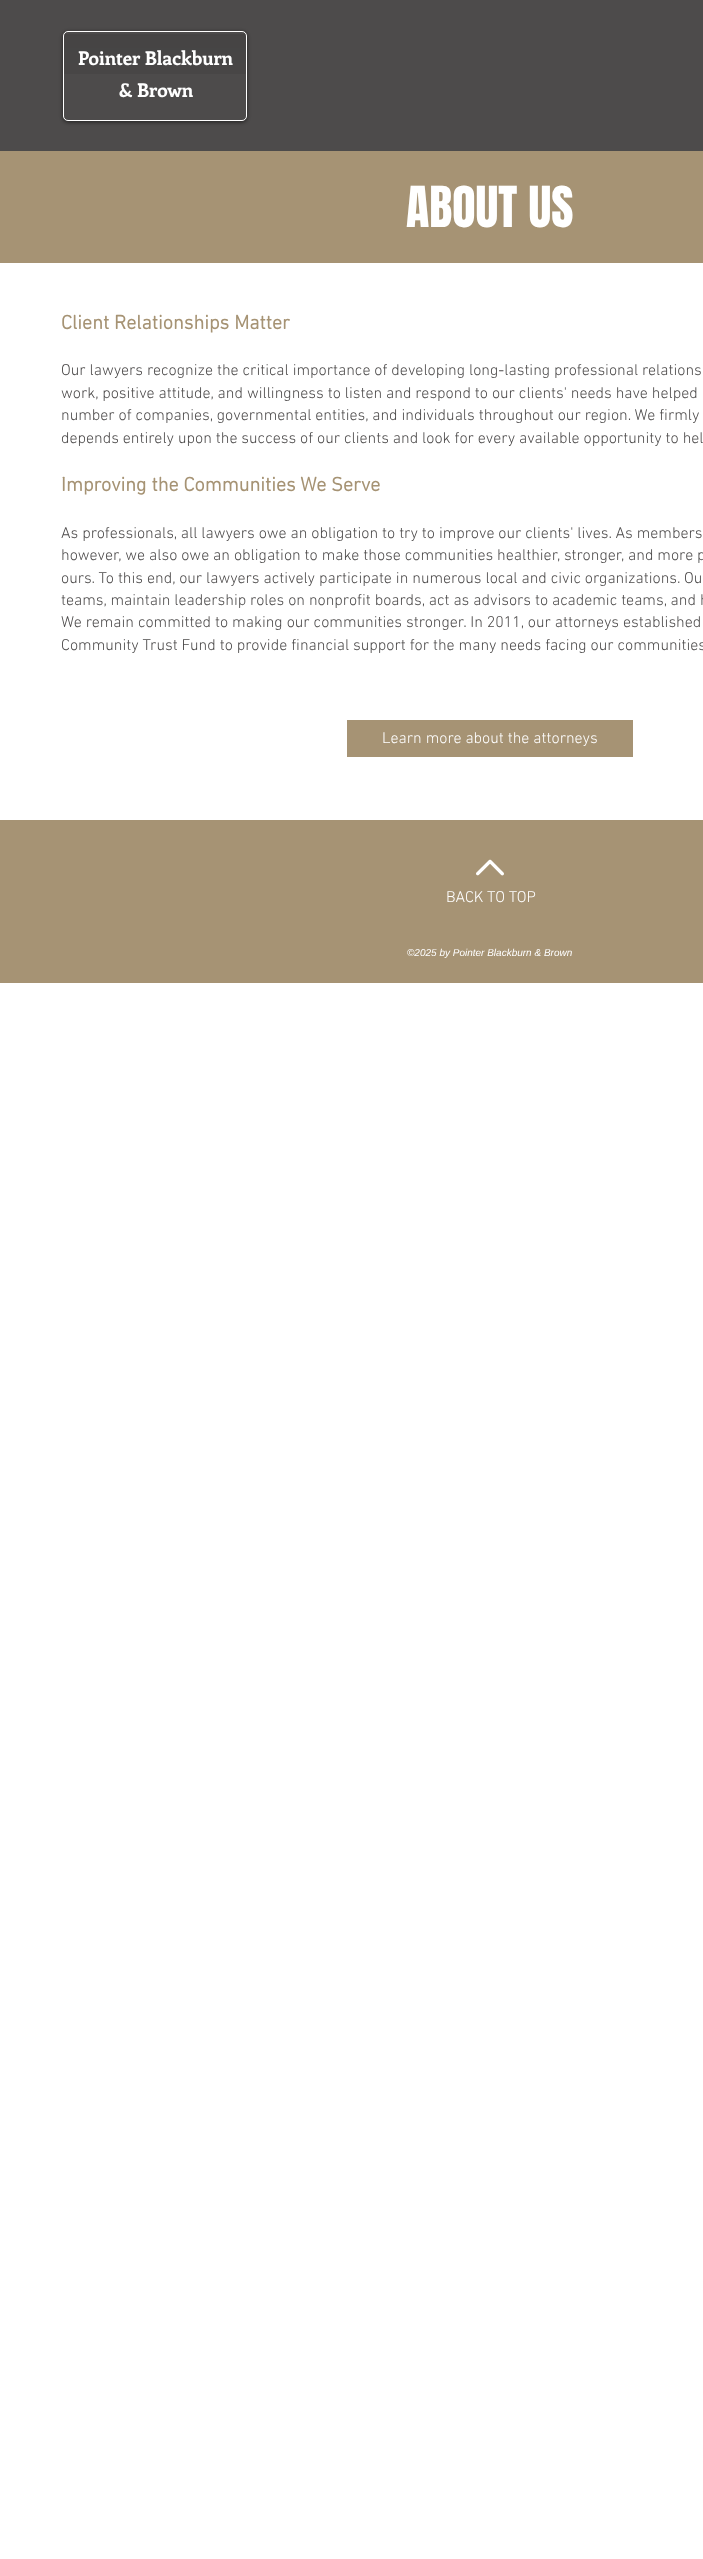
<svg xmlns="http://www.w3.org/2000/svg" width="703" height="2559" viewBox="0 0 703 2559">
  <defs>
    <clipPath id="clip1"><path d="M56 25H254V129H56ZM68 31H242C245 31 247 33 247 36V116C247 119 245 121 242 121H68C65 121 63 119 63 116V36C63 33 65 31 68 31Z" clip-rule="evenodd"/></clipPath>
    <filter id="blur1" x="-50%" y="-200%" width="200%" height="500%"><feGaussianBlur stdDeviation="2"/></filter>
  </defs>
  <rect width="100%" height="100%" fill="#ffffff"/>
  <rect x="0" y="0" width="703" height="151" fill="#4d4b4b"/>
  <g clip-path="url(#clip1)">
    <rect x="63" y="32" width="184" height="90" rx="5" fill="#000000" fill-opacity="0.6" filter="url(#blur1)"/>
  </g>
  <image x="63" y="34" width="184" height="40" href="img1.png"/>
  <rect x="63.5" y="31.5" width="183" height="89" rx="4.5" fill="none" stroke="#ffffff"/>
  <text x="78" y="65" font-family="Enriqueta" font-size="19" font-weight="bold" fill="#ffffff">Pointer Blackburn</text>
  <text x="119" y="97" font-family="Enriqueta" font-size="19" font-weight="bold" fill="#ffffff">&amp; Brown</text>
  <rect x="0" y="151" width="703" height="112" fill="#a69374"/>
  <text x="406" y="227" font-family="Anton" font-size="48" fill="#ffffff">ABOUT US</text>
  <text x="61" y="329" font-family="'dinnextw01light'" font-size="20" font-weight="bold" fill="#a69374">Client Relationships Matter</text>
  <text x="61" y="375" font-family="'dinnextw01light'" font-size="16" font-weight="300" fill="#4d4b4b">Our lawyers recognize the critical importance of developing long-lasting professional relations</text>
  <text x="61" y="398" font-family="'dinnextw01light'" font-size="16" font-weight="300" fill="#4d4b4b">work, positive attitude, and willingness to listen and respond to our clients' needs have helped</text>
  <text x="61" y="420" font-family="'dinnextw01light'" font-size="16" font-weight="300" fill="#4d4b4b">number of companies, governmental entities, and individuals throughout our region. We firmly</text>
  <text x="61" y="443" font-family="'dinnextw01light'" font-size="16" font-weight="300" fill="#4d4b4b">depends entirely upon the success of our clients and look for every available opportunity to hel</text>
  <text x="61" y="491" font-family="'dinnextw01light'" font-size="20" font-weight="bold" fill="#a69374">Improving the Communities We Serve</text>
  <text x="61" y="538" font-family="'dinnextw01light'" font-size="16" font-weight="300" fill="#4d4b4b">As professionals, all lawyers owe an obligation to try to improve our clients' lives. As members</text>
  <text x="61" y="560" font-family="'dinnextw01light'" font-size="16" font-weight="300" fill="#4d4b4b">however, we also owe an obligation to make those communities healthier, stronger, and more p</text>
  <text x="61" y="583" font-family="'dinnextw01light'" font-size="16" font-weight="300" fill="#4d4b4b">ours. To this end, our lawyers actively participate in numerous local and civic organizations. Ou</text>
  <text x="61" y="605" font-family="'dinnextw01light'" font-size="16" font-weight="300" fill="#4d4b4b">teams, maintain leadership roles on nonprofit boards, act as advisors to academic teams, and h</text>
  <text x="61" y="627" font-family="'dinnextw01light'" font-size="16" font-weight="300" fill="#4d4b4b">We remain committed to making our communities stronger. In 2011, our attorneys established</text>
  <text x="61" y="650" font-family="'dinnextw01light'" font-size="16" font-weight="300" fill="#4d4b4b">Community Trust Fund to provide financial support for the many needs facing our communities</text>
  <rect x="347" y="720" width="286" height="37" fill="#a69374"/>
  <text x="382" y="743" font-family="'dinnextw01light'" font-size="16" font-weight="300" fill="#ffffff">Learn more about the attorneys</text>
  <rect x="0" y="820" width="703" height="163" fill="#a69374"/>
  <image x="476" y="859" width="28" height="17" href="img2.png"/>
  <text x="446" y="902" font-family="'dinnextw01light'" font-size="16" font-weight="300" fill="#ffffff">BACK TO TOP</text>
  <text x="407" y="956" font-family="Liberation Sans" font-size="10" font-style="italic" fill="#ffffff">©2025 by Pointer Blackburn &amp; Brown</text>
</svg>
